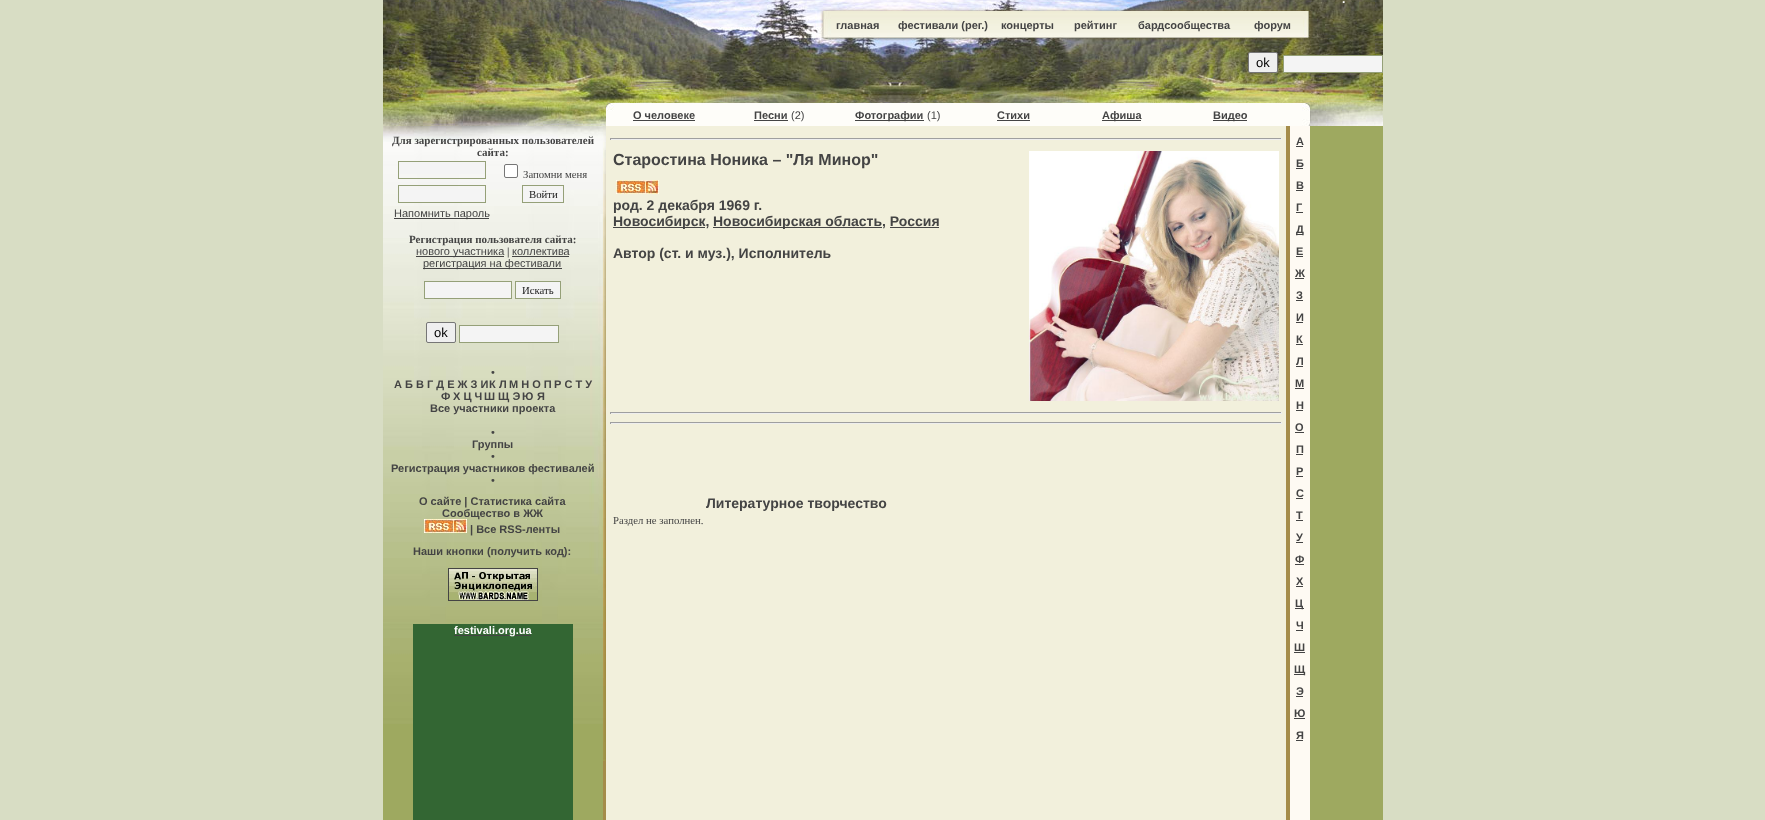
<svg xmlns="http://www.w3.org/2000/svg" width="1765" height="820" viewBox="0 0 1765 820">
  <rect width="100%" height="100%" fill="#d8ddc4"/>
  <image x="383" y="0" width="1000" height="11" href="img1.png"/>
  <text x="1342" y="3" font-family="Liberation Sans" font-size="12" font-weight="bold" fill="#ffffff">.</text>
  <image x="383" y="11" width="440" height="27" href="img2.png"/>
  <image x="823" y="11" width="486" height="27" href="img3.png"/>
  <text x="836" y="29" font-family="Liberation Sans" font-size="11" font-weight="bold" fill="#444444">главная</text>
  <text x="898" y="29" font-family="Liberation Sans" font-size="11" font-weight="bold" fill="#444444">фестивали (рег.)</text>
  <text x="1001" y="29" font-family="Liberation Sans" font-size="11" font-weight="bold" fill="#444444">концерты</text>
  <text x="1074" y="29" font-family="Liberation Sans" font-size="11" font-weight="bold" fill="#444444">рейтинг</text>
  <text x="1138" y="29" font-family="Liberation Sans" font-size="11" font-weight="bold" fill="#444444">бардсообщества</text>
  <text x="1254" y="29" font-family="Liberation Sans" font-size="11" font-weight="bold" fill="#444444">форум</text>
  <image x="1309" y="11" width="74" height="27" href="img4.png"/>
  <image x="383" y="38" width="1000" height="65" href="img5.png"/>
  <rect x="1248.5" y="52.5" width="29" height="20" rx="1.5" fill="#efefef" stroke="#767676"/>
  <text x="1256" y="67" font-family="Liberation Sans" font-size="13" fill="#000000">ok</text>
  <rect x="1283.5" y="55.5" width="99" height="17" fill="#f4f4f4" stroke="#95a078"/>
  <image x="383" y="103" width="223" height="23" href="img6.png"/>
  <image x="606" y="103" width="680" height="23" href="img7.png"/>
  <text x="633" y="119" font-family="Liberation Sans" font-size="11" font-weight="bold" fill="#444444">О человеке</text>
  <rect x="633" y="120" width="62" height="1" fill="#444444"/>
  <text x="754" y="119" font-family="Liberation Sans" font-size="11" font-weight="bold" fill="#444444">Песни</text>
  <rect x="754" y="120" width="34" height="1" fill="#444444"/>
  <text x="791" y="119" font-family="Liberation Sans" font-size="11" fill="#444444">(2)</text>
  <rect x="855" y="120" width="69" height="1" fill="#444444"/>
  <text x="855" y="119" font-family="Liberation Sans" font-size="11" font-weight="bold" fill="#444444">Фотографии</text>
  <text x="927" y="119" font-family="Liberation Sans" font-size="11" fill="#444444">(1)</text>
  <text x="997" y="119" font-family="Liberation Sans" font-size="11" font-weight="bold" fill="#444444">Стихи</text>
  <rect x="997" y="120" width="33" height="1" fill="#444444"/>
  <rect x="1102" y="120" width="39" height="1" fill="#444444"/>
  <text x="1102" y="119" font-family="Liberation Sans" font-size="11" font-weight="bold" fill="#444444">Афиша</text>
  <rect x="1213" y="120" width="34" height="1" fill="#444444"/>
  <text x="1213" y="119" font-family="Liberation Sans" font-size="11" font-weight="bold" fill="#444444">Видео</text>
  <image x="1286" y="103" width="97" height="23" href="img8.png"/>
  <rect x="383" y="724" width="220" height="96" fill="#9ea960"/>
  <image x="383" y="126" width="220" height="598" href="img9.png"/>
  <text x="392" y="144" font-family="Liberation Serif" font-size="11" font-weight="bold" fill="#444444">Для зарегистрированных пользователей</text>
  <text x="477" y="156" font-family="Liberation Serif" font-size="11" font-weight="bold" fill="#444444">сайта:</text>
  <rect x="399" y="162" width="86" height="12" fill="#f4f4f4"/>
  <rect x="398.5" y="161.5" width="87" height="17" fill="none" stroke="#95a078"/>
  <rect x="504.5" y="164.5" width="13" height="13" rx="1.5" fill="#ffffff" stroke="#767676"/>
  <text x="523" y="178" font-family="Liberation Serif" font-size="10.75" fill="#444444">Запомни меня</text>
  <rect x="399" y="189" width="86" height="13" fill="#f4f4f4"/>
  <rect x="398.5" y="185.5" width="87" height="17" fill="none" stroke="#95a078"/>
  <rect x="523" y="189" width="40" height="13" fill="#f4f4f4"/>
  <rect x="522.5" y="185.5" width="41" height="17" fill="none" stroke="#95a078"/>
  <text x="529" y="198" font-family="Liberation Serif" font-size="10.75" fill="#222222">Войти</text>
  <rect x="394" y="218" width="95" height="1" fill="#444444"/>
  <text x="394" y="217" font-family="Liberation Sans" font-size="11" fill="#444444">Напомнить пароль</text>
  <text x="409" y="243" font-family="Liberation Serif" font-size="11" font-weight="bold" fill="#444444">Регистрация пользователя сайта:</text>
  <rect x="416" y="256" width="88" height="1" fill="#444444"/>
  <text x="416" y="255" font-family="Liberation Sans" font-size="11" fill="#444444">нового участника</text>
  <text x="507" y="255" font-family="Liberation Serif" font-size="11" font-weight="bold" fill="#444444">|</text>
  <text x="512" y="255" font-family="Liberation Sans" font-size="11" fill="#444444">коллектива</text>
  <rect x="512" y="256" width="57" height="1" fill="#444444"/>
  <rect x="423" y="268" width="139" height="1" fill="#444444"/>
  <text x="423" y="267" font-family="Liberation Sans" font-size="11" fill="#444444">регистрация на фестивали</text>
  <rect x="424.5" y="281.5" width="87" height="17" fill="#f4f4f4" stroke="#95a078"/>
  <rect x="515.5" y="281.5" width="45" height="17" fill="#f4f4f4" stroke="#95a078"/>
  <text x="522" y="294" font-family="Liberation Serif" font-size="10.75" fill="#222222">Искать</text>
  <rect x="426.5" y="322.5" width="29" height="20" rx="1.5" fill="#efefef" stroke="#767676"/>
  <text x="434" y="337" font-family="Liberation Sans" font-size="13" fill="#000000">ok</text>
  <rect x="459.5" y="325.5" width="99" height="17" fill="#f4f4f4" stroke="#95a078"/>
  <text x="491" y="376" font-family="Liberation Serif" font-size="11" font-weight="bold" fill="#444444">•</text>
  <text x="394" y="388" font-family="Liberation Sans" font-size="11" font-weight="bold" fill="#444444">А Б</text>
  <text x="416" y="388" font-family="Liberation Sans" font-size="11" font-weight="bold" fill="#444444">В Г Д Е Ж З И</text>
  <text x="489" y="388" font-family="Liberation Sans" font-size="11" font-weight="bold" fill="#444444">К</text>
  <text x="499" y="388" font-family="Liberation Sans" font-size="11" font-weight="bold" fill="#444444">Л</text>
  <text x="509" y="388" font-family="Liberation Sans" font-size="11" font-weight="bold" fill="#444444">М Н О П</text>
  <text x="554" y="388" font-family="Liberation Sans" font-size="11" font-weight="bold" fill="#444444">Р С Т У</text>
  <text x="441" y="400" font-family="Liberation Sans" font-size="11" font-weight="bold" fill="#444444">Ф</text>
  <text x="453" y="400" font-family="Liberation Sans" font-size="11" font-weight="bold" fill="#444444">Х Ц Ч</text>
  <text x="484" y="400" font-family="Liberation Sans" font-size="11" font-weight="bold" fill="#444444">Ш Щ Э</text>
  <text x="522" y="400" font-family="Liberation Sans" font-size="11" font-weight="bold" fill="#444444">Ю</text>
  <text x="537" y="400" font-family="Liberation Sans" font-size="11" font-weight="bold" fill="#444444">Я</text>
  <text x="430" y="412" font-family="Liberation Sans" font-size="11" font-weight="bold" fill="#444444">Все участники проекта</text>
  <text x="491" y="436" font-family="Liberation Serif" font-size="11" font-weight="bold" fill="#444444">•</text>
  <text x="472" y="448" font-family="Liberation Sans" font-size="11" font-weight="bold" fill="#444444">Группы</text>
  <text x="491" y="460" font-family="Liberation Serif" font-size="11" font-weight="bold" fill="#444444">•</text>
  <text x="391" y="472" font-family="Liberation Sans" font-size="11" font-weight="bold" fill="#444444">Регистрация участников фестивалей</text>
  <text x="491" y="484" font-family="Liberation Serif" font-size="11" font-weight="bold" fill="#444444">•</text>
  <text x="419" y="505" font-family="Liberation Sans" font-size="11" font-weight="bold" fill="#444444">О сайте | Статистика сайта</text>
  <text x="442" y="517" font-family="Liberation Sans" font-size="11" font-weight="bold" fill="#444444">Сообщество в ЖЖ</text>
  <image x="424" y="519" width="43" height="14" href="img10.png"/>
  <text x="470" y="533" font-family="Liberation Sans" font-size="11" font-weight="bold" fill="#444444">| Все RSS-ленты</text>
  <text x="413" y="555" font-family="Liberation Sans" font-size="11" font-weight="bold" fill="#444444">Наши кнопки (получить код):</text>
  <rect x="448.5" y="568.5" width="89" height="32" fill="none" stroke="#444444"/>
  <image x="449" y="569" width="88" height="31" href="img11.png"/>
  <rect x="413" y="624" width="160" height="196" fill="#336633"/>
  <rect x="454" y="635" width="77" height="1" fill="#444444"/>
  <text x="454" y="634" font-family="Liberation Sans" font-size="11" font-weight="bold" fill="#ffffff">festivali.org.ua</text>
  <rect x="603" y="761" width="3" height="59" fill="#a58c4a"/>
  <image x="603" y="126" width="3" height="635" href="img12.png"/>
  <rect x="606" y="126" width="680" height="694" fill="#f2f0dc"/>
  <rect x="610" y="138" width="672" height="1" fill="#9f9f9f"/>
  <rect x="1281" y="138" width="1" height="2" fill="#eeeeee"/>
  <rect x="610" y="139" width="672" height="1" fill="#eeeeee"/>
  <rect x="610" y="138" width="1" height="2" fill="#9f9f9f"/>
  <text x="613" y="165" font-family="Liberation Sans" font-size="16" font-weight="bold" fill="#444444">Старостина Ноника – "Ля Минор"</text>
  <image x="616" y="180" width="43" height="14" href="img10.png"/>
  <text x="613" y="210" font-family="Liberation Sans" font-size="14" font-weight="bold" fill="#444444">род. 2 декабря 1969 г.</text>
  <rect x="613" y="227" width="92" height="1" fill="#444444"/>
  <text x="613" y="226" font-family="Liberation Sans" font-size="14" font-weight="bold" fill="#444444">Новосибирск,</text>
  <rect x="713" y="227" width="169" height="1" fill="#444444"/>
  <text x="713" y="226" font-family="Liberation Sans" font-size="14" font-weight="bold" fill="#444444">Новосибирская область, Россия</text>
  <rect x="890" y="227" width="49" height="1" fill="#444444"/>
  <text x="613" y="258" font-family="Liberation Sans" font-size="14" font-weight="bold" fill="#444444">Автор (ст. и муз.), Исполнитель</text>
  <image x="1029" y="151" width="250" height="250" href="img13.png"/>
  <rect x="610" y="412" width="672" height="1" fill="#9f9f9f"/>
  <rect x="1281" y="412" width="1" height="2" fill="#eeeeee"/>
  <rect x="610" y="413" width="672" height="1" fill="#eeeeee"/>
  <rect x="610" y="412" width="1" height="2" fill="#9f9f9f"/>
  <rect x="610" y="422" width="672" height="1" fill="#9f9f9f"/>
  <rect x="1281" y="422" width="1" height="2" fill="#eeeeee"/>
  <rect x="610" y="423" width="672" height="1" fill="#eeeeee"/>
  <rect x="610" y="422" width="1" height="2" fill="#9f9f9f"/>
  <text x="706" y="508" font-family="Liberation Sans" font-size="14" font-weight="bold" fill="#444444">Литературное творчество</text>
  <text x="613" y="524" font-family="Liberation Serif" font-size="10.75" fill="#444444">Раздел не заполнен.</text>
  <rect x="1286" y="126" width="4" height="694" fill="#a58c4a"/>
  <rect x="1290" y="126" width="20" height="694" fill="#fefaf3"/>
  <text x="1296" y="145" font-family="Liberation Sans" font-size="11" font-weight="bold" fill="#444444">А</text>
  <rect x="1296" y="146" width="7" height="1" fill="#444444"/>
  <text x="1296" y="167" font-family="Liberation Sans" font-size="11" font-weight="bold" fill="#444444">Б</text>
  <rect x="1296" y="168" width="7" height="1" fill="#444444"/>
  <text x="1296" y="189" font-family="Liberation Sans" font-size="11" font-weight="bold" fill="#444444">В</text>
  <rect x="1296" y="190" width="7" height="1" fill="#444444"/>
  <text x="1296" y="211" font-family="Liberation Sans" font-size="11" font-weight="bold" fill="#444444">Г</text>
  <rect x="1296" y="212" width="7" height="1" fill="#444444"/>
  <rect x="1296" y="234" width="7" height="1" fill="#444444"/>
  <text x="1296" y="233" font-family="Liberation Sans" font-size="11" font-weight="bold" fill="#444444">Д</text>
  <text x="1296" y="255" font-family="Liberation Sans" font-size="11" font-weight="bold" fill="#444444">Е</text>
  <rect x="1296" y="256" width="7" height="1" fill="#444444"/>
  <text x="1295" y="277" font-family="Liberation Sans" font-size="11" font-weight="bold" fill="#444444">Ж</text>
  <rect x="1295" y="278" width="9" height="1" fill="#444444"/>
  <text x="1296" y="299" font-family="Liberation Sans" font-size="11" font-weight="bold" fill="#444444">З</text>
  <rect x="1296" y="300" width="7" height="1" fill="#444444"/>
  <text x="1296" y="321" font-family="Liberation Sans" font-size="11" font-weight="bold" fill="#444444">И</text>
  <rect x="1296" y="322" width="7" height="1" fill="#444444"/>
  <text x="1296" y="343" font-family="Liberation Sans" font-size="11" font-weight="bold" fill="#444444">К</text>
  <rect x="1296" y="344" width="7" height="1" fill="#444444"/>
  <text x="1296" y="365" font-family="Liberation Sans" font-size="11" font-weight="bold" fill="#444444">Л</text>
  <rect x="1296" y="366" width="7" height="1" fill="#444444"/>
  <text x="1295" y="387" font-family="Liberation Sans" font-size="11" font-weight="bold" fill="#444444">М</text>
  <rect x="1295" y="388" width="9" height="1" fill="#444444"/>
  <text x="1296" y="409" font-family="Liberation Sans" font-size="11" font-weight="bold" fill="#444444">Н</text>
  <rect x="1296" y="410" width="7" height="1" fill="#444444"/>
  <text x="1295" y="431" font-family="Liberation Sans" font-size="11" font-weight="bold" fill="#444444">О</text>
  <rect x="1295" y="432" width="9" height="1" fill="#444444"/>
  <text x="1296" y="453" font-family="Liberation Sans" font-size="11" font-weight="bold" fill="#444444">П</text>
  <rect x="1296" y="454" width="7" height="1" fill="#444444"/>
  <text x="1296" y="475" font-family="Liberation Sans" font-size="11" font-weight="bold" fill="#444444">Р</text>
  <rect x="1296" y="476" width="7" height="1" fill="#444444"/>
  <text x="1296" y="497" font-family="Liberation Sans" font-size="11" font-weight="bold" fill="#444444">С</text>
  <rect x="1296" y="498" width="7" height="1" fill="#444444"/>
  <text x="1296" y="519" font-family="Liberation Sans" font-size="11" font-weight="bold" fill="#444444">Т</text>
  <rect x="1296" y="520" width="7" height="1" fill="#444444"/>
  <text x="1296" y="541" font-family="Liberation Sans" font-size="11" font-weight="bold" fill="#444444">У</text>
  <rect x="1296" y="542" width="7" height="1" fill="#444444"/>
  <text x="1295" y="563" font-family="Liberation Sans" font-size="11" font-weight="bold" fill="#444444">Ф</text>
  <rect x="1295" y="564" width="9" height="1" fill="#444444"/>
  <text x="1296" y="585" font-family="Liberation Sans" font-size="11" font-weight="bold" fill="#444444">Х</text>
  <rect x="1296" y="586" width="7" height="1" fill="#444444"/>
  <rect x="1295" y="608" width="9" height="1" fill="#444444"/>
  <text x="1295" y="607" font-family="Liberation Sans" font-size="11" font-weight="bold" fill="#444444">Ц</text>
  <text x="1296" y="629" font-family="Liberation Sans" font-size="11" font-weight="bold" fill="#444444">Ч</text>
  <rect x="1296" y="630" width="7" height="1" fill="#444444"/>
  <text x="1294" y="651" font-family="Liberation Sans" font-size="11" font-weight="bold" fill="#444444">Ш</text>
  <rect x="1294" y="652" width="11" height="1" fill="#444444"/>
  <rect x="1294" y="674" width="11" height="1" fill="#444444"/>
  <text x="1294" y="673" font-family="Liberation Sans" font-size="11" font-weight="bold" fill="#444444">Щ</text>
  <text x="1296" y="695" font-family="Liberation Sans" font-size="11" font-weight="bold" fill="#444444">Э</text>
  <rect x="1296" y="696" width="7" height="1" fill="#444444"/>
  <text x="1294" y="717" font-family="Liberation Sans" font-size="11" font-weight="bold" fill="#444444">Ю</text>
  <rect x="1294" y="718" width="11" height="1" fill="#444444"/>
  <text x="1296" y="739" font-family="Liberation Sans" font-size="11" font-weight="bold" fill="#444444">Я</text>
  <rect x="1296" y="740" width="7" height="1" fill="#444444"/>
  <rect x="1310" y="126" width="73" height="694" fill="#9ea960"/>
</svg>
